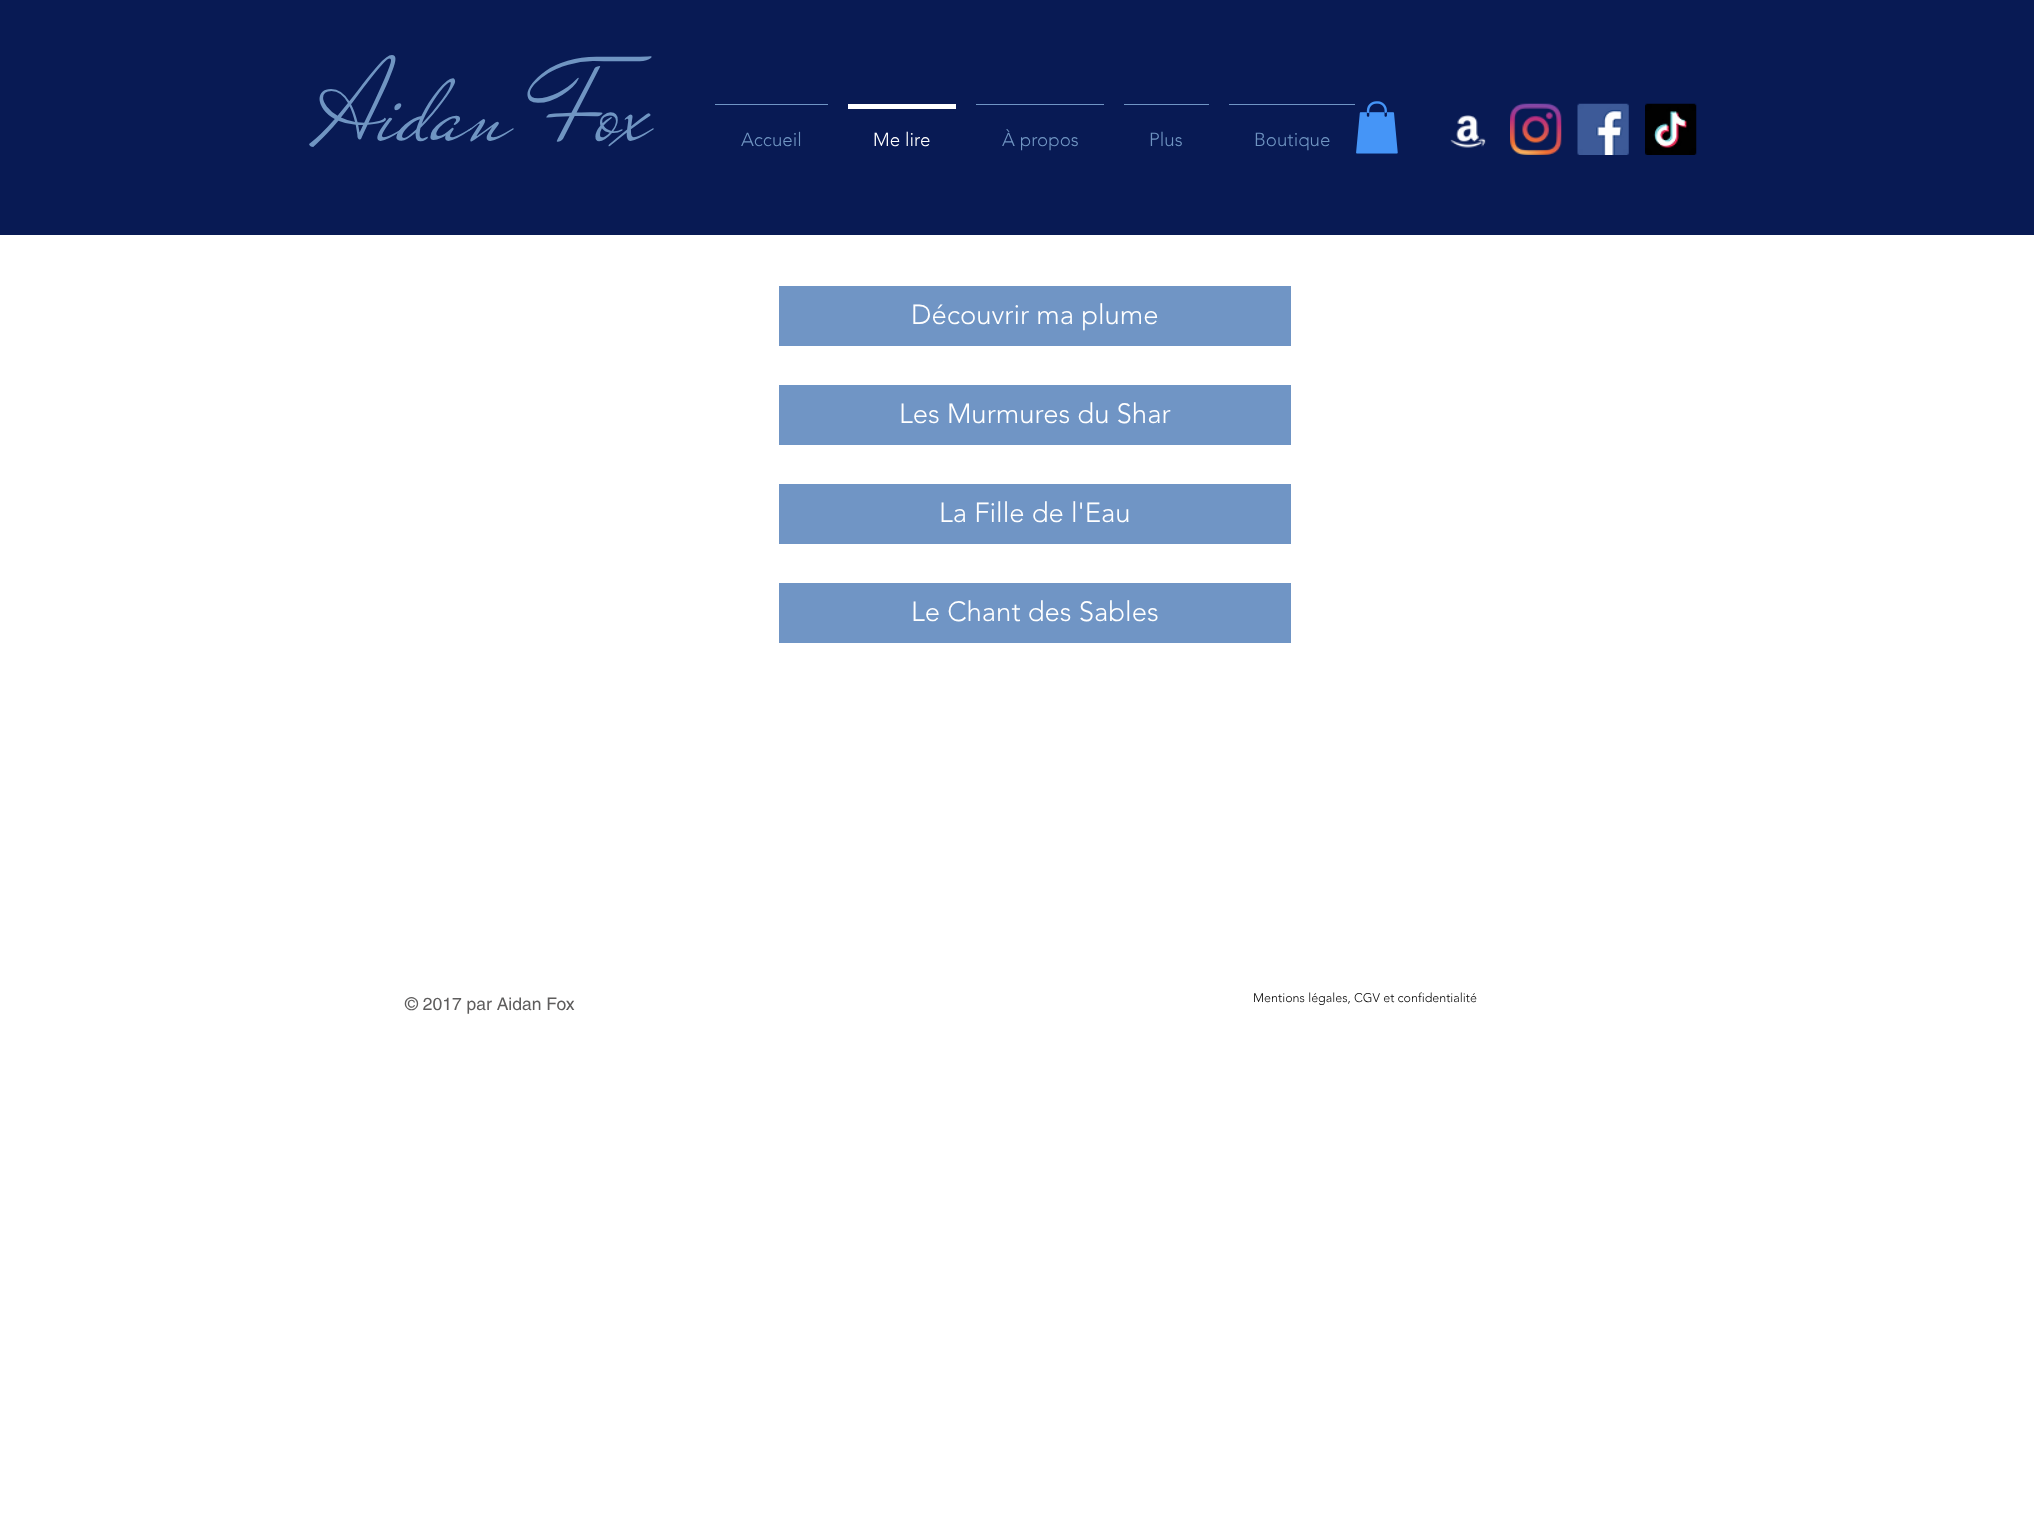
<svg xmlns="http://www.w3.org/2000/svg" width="2034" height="1527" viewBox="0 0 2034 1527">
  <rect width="100%" height="100%" fill="#ffffff"/>
  <rect x="0" y="0" width="2034" height="235" fill="#081a54"/>
  <text x="318" y="139" font-family="Mr De Haviland" font-size="117.5" fill="#7095c2">Aidan Fox</text>
  <rect x="715" y="104" width="113" height="1" fill="#7095c5"/>
  <text x="741" y="146" font-family="'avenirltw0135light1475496'" font-size="18.75" font-weight="300" fill="#7095c2">Accueil</text>
  <rect x="848" y="104" width="108" height="5" fill="#ffffff"/>
  <text x="873" y="146" font-family="'avenirltw0135light1475496'" font-size="18.75" font-weight="300" fill="#ffffff">Me lire</text>
  <rect x="976" y="104" width="128" height="1" fill="#7095c5"/>
  <text x="1002" y="146" font-family="'avenirltw0135light1475496'" font-size="18.75" font-weight="300" fill="#7095c2">À propos</text>
  <rect x="1124" y="104" width="85" height="1" fill="#7095c5"/>
  <text x="1149" y="146" font-family="'avenirltw0135light1475496'" font-size="18.75" font-weight="300" fill="#7095c2">Plus</text>
  <rect x="1229" y="104" width="126" height="1" fill="#7095c5"/>
  <text x="1254" y="146" font-family="'avenirltw0135light1475496'" font-size="18.75" font-weight="300" fill="#7095c2">Boutique</text>
  <image x="1356" y="101" width="42" height="53" href="img1.png"/>
  <image x="1450" y="115" width="36" height="33" href="img2.png"/>
  <image x="1510" y="103" width="52" height="52" href="img3.png"/>
  <image x="1577" y="103" width="52" height="52" href="img4.png"/>
  <image x="1645" y="103" width="52" height="52" href="img5.png"/>
  <rect x="779" y="286" width="512" height="60" fill="#7095c5"/>
  <text x="911" y="324" font-family="'avenirltw0135light1475496'" font-size="27.5" font-weight="300" fill="#ffffff">Découvrir ma plume</text>
  <rect x="779" y="385" width="512" height="60" fill="#7095c5"/>
  <text x="899" y="423" font-family="'avenirltw0135light1475496'" font-size="27.5" font-weight="300" fill="#ffffff">Les Murmures du Shar</text>
  <rect x="779" y="484" width="512" height="60" fill="#7095c5"/>
  <text x="939" y="522" font-family="'avenirltw0135light1475496'" font-size="27.5" font-weight="300" fill="#ffffff">La Fille de l'Eau</text>
  <rect x="779" y="583" width="512" height="60" fill="#7095c5"/>
  <text x="911" y="621" font-family="'avenirltw0135light1475496'" font-size="27.5" font-weight="300" fill="#ffffff">Le Chant des Sables</text>
  <text x="405" y="1010" font-family="helvetica" font-size="17.5" fill="#5e5d5d">© 2017 par Aidan Fox</text>
  <text x="1253" y="1002" font-family="'avenirltw0135light1475496'" font-size="12.5" font-weight="300" fill="#000000">Mentions légales, CGV et confidentialité</text>
</svg>
